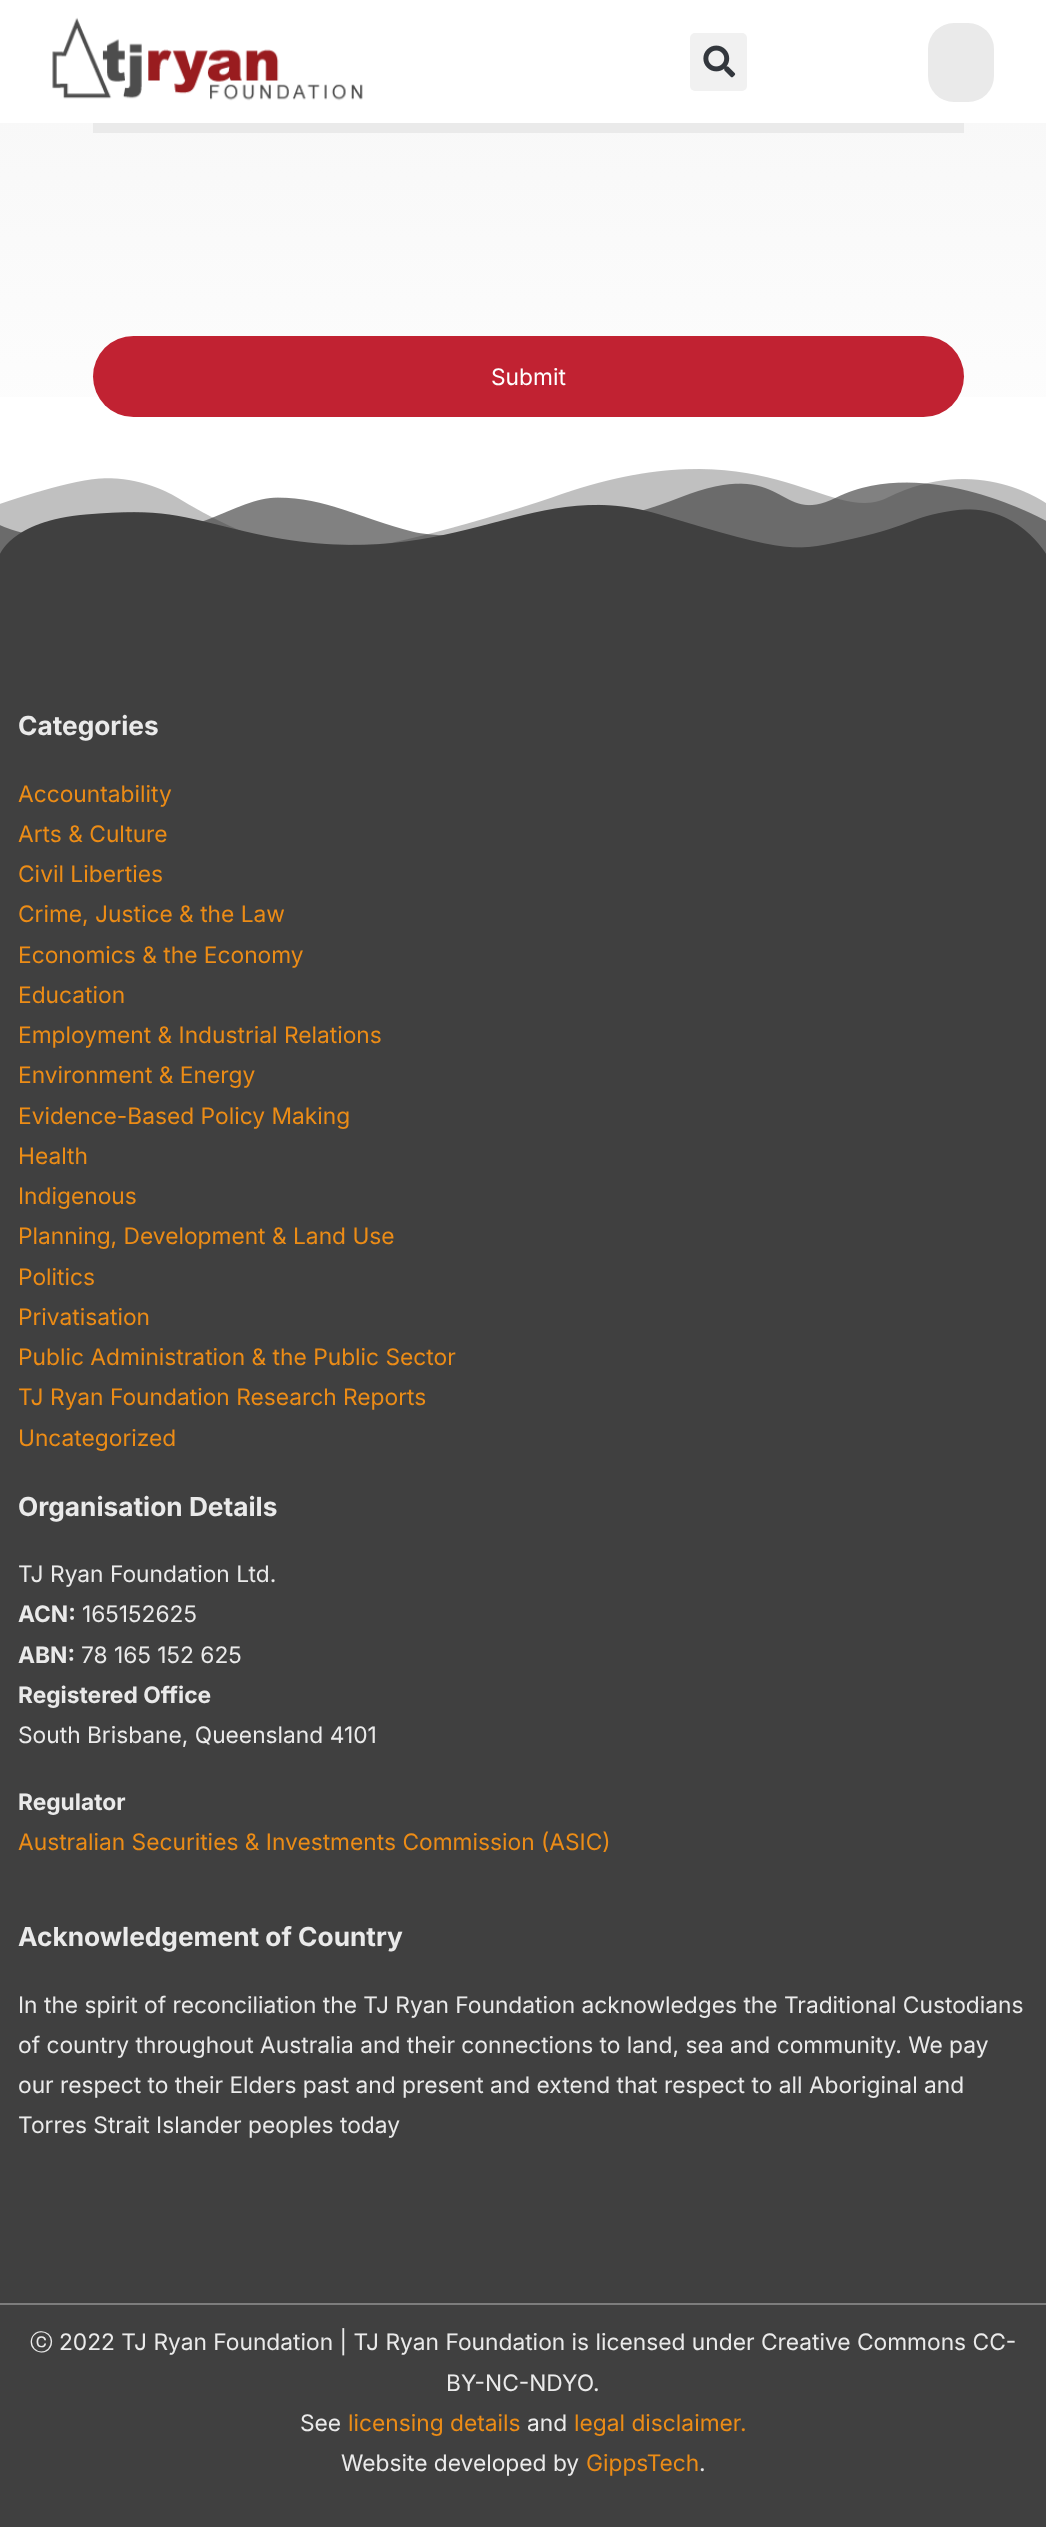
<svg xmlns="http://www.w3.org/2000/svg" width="1046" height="2527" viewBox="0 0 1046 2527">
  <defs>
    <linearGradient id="g1" gradientUnits="userSpaceOnUse" x1="523" y1="-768" x2="523" y2="555"><stop offset="0" stop-color="#eaeaea"/><stop offset="1" stop-color="#ffffff"/></linearGradient>
  </defs>
  <rect width="100%" height="100%" fill="#ffffff"/>
  <image x="52" y="17" width="311" height="84" href="img1.png"/>
  <rect x="690" y="33" width="57" height="58" rx="5" fill="#f1f1f1"/>
  <image x="703" y="45" width="33" height="33" href="img2.png"/>
  <rect x="928" y="23" width="66" height="79" rx="26" fill="#eaeaea"/>
  <rect x="0" y="123" width="1046" height="274" fill="url(#g1)"/>
  <rect x="93" y="123" width="871" height="10" fill="#eaeaea"/>
  <rect x="93" y="336" width="871" height="81" rx="40.5" fill="#c12232"/>
  <text x="491" y="385" font-family="Inter" font-size="22.75" fill="#ffffff">Submit</text>
  <image x="0" y="469" width="1046" height="86" href="img3.png"/>
  <rect x="0" y="555" width="1046" height="1748" fill="#404040"/>
  <text x="18" y="735" font-family="Inter" font-size="26.25" font-weight="bold" fill="#eaeaea">Categories</text>
  <text x="18" y="802" font-family="Inter" font-size="22.75" fill="#ec8c16">Accountability</text>
  <text x="18" y="842" font-family="Inter" font-size="22.75" fill="#ec8c16">Arts &amp; Culture</text>
  <text x="18" y="882" font-family="Inter" font-size="22.75" fill="#ec8c16">Civil Liberties</text>
  <text x="18" y="922" font-family="Inter" font-size="22.75" fill="#ec8c16">Crime, Justice &amp; the Law</text>
  <text x="18" y="963" font-family="Inter" font-size="22.75" fill="#ec8c16">Economics &amp; the Economy</text>
  <text x="18" y="1003" font-family="Inter" font-size="22.75" fill="#ec8c16">Education</text>
  <text x="18" y="1043" font-family="Inter" font-size="22.75" fill="#ec8c16">Employment &amp; Industrial Relations</text>
  <text x="18" y="1083" font-family="Inter" font-size="22.75" fill="#ec8c16">Environment &amp; Energy</text>
  <text x="18" y="1124" font-family="Inter" font-size="22.75" fill="#ec8c16">Evidence-Based Policy Making</text>
  <text x="18" y="1164" font-family="Inter" font-size="22.75" fill="#ec8c16">Health</text>
  <text x="18" y="1204" font-family="Inter" font-size="22.75" fill="#ec8c16">Indigenous</text>
  <text x="18" y="1244" font-family="Inter" font-size="22.75" fill="#ec8c16">Planning, Development &amp; Land Use</text>
  <text x="18" y="1285" font-family="Inter" font-size="22.75" fill="#ec8c16">Politics</text>
  <text x="18" y="1325" font-family="Inter" font-size="22.75" fill="#ec8c16">Privatisation</text>
  <text x="18" y="1365" font-family="Inter" font-size="22.75" fill="#ec8c16">Public Administration &amp; the Public Sector</text>
  <text x="18" y="1405" font-family="Inter" font-size="22.75" fill="#ec8c16">TJ Ryan Foundation Research Reports</text>
  <text x="18" y="1446" font-family="Inter" font-size="22.75" fill="#ec8c16">Uncategorized</text>
  <text x="18" y="1516" font-family="Inter" font-size="26.25" font-weight="bold" fill="#eaeaea">Organisation Details</text>
  <text x="18" y="1582" font-family="Inter" font-size="22.75" fill="#eaeaea">TJ Ryan Foundation Ltd.</text>
  <text x="18" y="1622" font-family="Inter" font-size="22.75" font-weight="bold" fill="#eaeaea">ACN:</text>
  <text x="82" y="1622" font-family="Inter" font-size="22.75" fill="#eaeaea">165152625</text>
  <text x="18" y="1663" font-family="Inter" font-size="22.75" font-weight="bold" fill="#eaeaea">ABN:</text>
  <text x="81" y="1663" font-family="Inter" font-size="22.75" fill="#eaeaea">78 165 152 625</text>
  <text x="18" y="1703" font-family="Inter" font-size="22.75" font-weight="bold" fill="#eaeaea">Registered Office</text>
  <text x="18" y="1743" font-family="Inter" font-size="22.75" fill="#eaeaea">South Brisbane, Queensland 4101</text>
  <text x="18" y="1810" font-family="Inter" font-size="22.75" font-weight="bold" fill="#eaeaea">Regulator</text>
  <text x="18" y="1850" font-family="Inter" font-size="22.75" fill="#ec8c16">Australian Securities &amp; Investments Commission (ASIC)</text>
  <text x="18" y="1946" font-family="Inter" font-size="26.25" font-weight="bold" fill="#eaeaea">Acknowledgement of Country</text>
  <text x="18" y="2013" font-family="Inter" font-size="22.75" fill="#eaeaea">In the spirit of reconciliation the TJ Ryan Foundation acknowledges the Traditional Custodians</text>
  <text x="18" y="2053" font-family="Inter" font-size="22.75" fill="#eaeaea">of country throughout Australia and their connections to land, sea and community. We pay</text>
  <text x="18" y="2093" font-family="Inter" font-size="22.75" fill="#eaeaea">our respect to their Elders past and present and extend that respect to all Aboriginal and</text>
  <text x="18" y="2133" font-family="Inter" font-size="22.75" fill="#eaeaea">Torres Strait Islander peoples today</text>
  <rect x="0" y="2305" width="1046" height="222" fill="#404040"/>
  <rect x="0" y="2303" width="1046" height="2" fill="#7d7d7d"/>
  <text x="30" y="2350" font-family="WenQuanYi Zen Hei" font-size="22.75" font-weight="500" fill="#eaeaea">ⓒ</text>
  <text x="59" y="2350" font-family="Inter" font-size="22.75" fill="#eaeaea">2022 TJ Ryan Foundation | TJ Ryan Foundation is licensed under Creative Commons CC-</text>
  <text x="446" y="2391" font-family="Inter" font-size="22.75" fill="#eaeaea">BY-NC-NDYO.</text>
  <text x="300" y="2431" font-family="Inter" font-size="22.75" fill="#eaeaea">See</text>
  <text x="348" y="2431" font-family="Inter" font-size="22.75" fill="#ec8c16">licensing details</text>
  <text x="527" y="2431" font-family="Inter" font-size="22.75" fill="#eaeaea">and</text>
  <text x="574" y="2431" font-family="Inter" font-size="22.75" fill="#ec8c16">legal disclaimer.</text>
  <text x="341" y="2471" font-family="Inter" font-size="22.75" fill="#eaeaea">Website developed by</text>
  <text x="586" y="2471" font-family="Inter" font-size="22.75" fill="#ec8c16">GippsTech</text>
  <text x="699" y="2471" font-family="Inter" font-size="22.75" fill="#eaeaea">.</text>
</svg>
